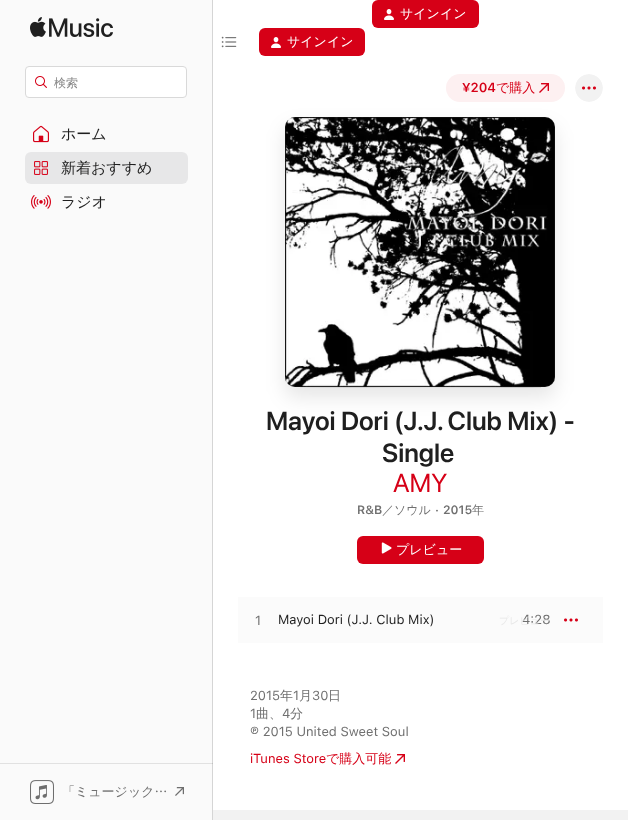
<svg xmlns="http://www.w3.org/2000/svg" width="628" height="820" viewBox="0 0 628 820">
  <defs>
    <filter id="blur1" x="-50%" y="-200%" width="200%" height="500%"><feGaussianBlur stdDeviation="10"/></filter>
  </defs>
  <rect width="100%" height="100%" fill="#ffffff"/>
  <rect x="372" y="0" width="107" height="28" rx="6" fill="#d60017"/>
  <image x="384" y="9" width="10" height="11" href="img1.png"/>
  <text x="400" y="18" font-family="WenQuanYi Zen Hei" font-size="13" font-weight="500" fill="#ffffff">サインイン</text>
  <image x="221" y="36" width="16" height="12" href="img2.png"/>
  <rect x="259" y="28" width="106" height="28" rx="6" fill="#d60017"/>
  <image x="271" y="37" width="10" height="11" href="img1.png"/>
  <text x="287" y="46" font-family="WenQuanYi Zen Hei" font-size="13" font-weight="500" fill="#ffffff">サインイン</text>
  <rect x="0" y="0" width="212" height="820" fill="#fafafa"/>
  <rect x="0" y="763" width="213" height="1" fill="#e1e1e1"/>
  <rect x="212" y="0" width="1" height="820" fill="#d5d5d5"/>
  <rect x="212" y="763" width="1" height="1" fill="#c0c0c0"/>
  <image x="30" y="17" width="83" height="20" href="img3.png"/>
  <rect x="25.5" y="66.5" width="161" height="31" rx="3.5" fill="#ffffff" stroke="#d9d9d9"/>
  <image x="35" y="76" width="12" height="12" href="img4.png"/>
  <text x="54" y="87" font-family="WenQuanYi Zen Hei" font-size="12" font-weight="500" fill="#858585">検索</text>
  <image x="33" y="125" width="16" height="18" href="img5.png"/>
  <text x="61" y="139" font-family="WenQuanYi Zen Hei" font-size="15" font-weight="500" fill="#1f1f1f">ホーム</text>
  <rect x="25" y="152" width="163" height="32" rx="6" fill="#e7e7e8"/>
  <image x="34" y="161" width="14" height="14" href="img6.png"/>
  <text x="61" y="173" font-family="WenQuanYi Zen Hei" font-size="15" font-weight="500" fill="#1f1f1f">新着おすすめ</text>
  <image x="31" y="195" width="20" height="14" href="img7.png"/>
  <text x="61" y="207" font-family="WenQuanYi Zen Hei" font-size="15" font-weight="500" fill="#1f1f1f">ラジオ</text>
  <image x="30" y="780" width="24" height="24" href="img8.png"/>
  <text x="62" y="796" font-family="WenQuanYi Zen Hei" font-size="13" font-weight="500" fill="#707070">「ミュージック…</text>
  <image x="175" y="787" width="9" height="9" href="img9.png"/>
  <rect x="446" y="74" width="119" height="28" rx="14" fill="#fdf0f1"/>
  <text x="462" y="92" font-family="SF" font-size="13" font-weight="600" fill="#d60017">¥204</text>
  <text x="496" y="92" font-family="WenQuanYi Zen Hei" font-size="13" font-weight="500" fill="#d60017">で購入</text>
  <image x="539" y="83" width="10" height="10" href="img10.png"/>
  <image x="575" y="74" width="28" height="28" href="img11.png"/>
  <rect x="285" y="127" width="270" height="270" rx="10" fill="#000000" fill-opacity="0.1" filter="url(#blur1)"/>
  <image x="285" y="117" width="270" height="270" href="img12.png"/>
  <rect x="285.5" y="117.5" width="269" height="269" rx="9.5" fill="none" stroke="#808080" stroke-opacity="0.1"/>
  <image x="300" y="387" width="241" height="1" href="img13.png"/>
  <text x="266" y="430" font-family="'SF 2'" font-size="26" font-weight="600" fill="#1f1f1f">Mayoi Dori (J.J. Club Mix) -</text>
  <text x="382" y="462" font-family="'SF 2'" font-size="26" font-weight="600" fill="#1f1f1f">Single</text>
  <text x="393" y="492" font-family="SF" font-size="26" fill="#d60017">AMY</text>
  <text x="357" y="514" font-family="SF" font-size="12" font-weight="600" fill="#707070">R&amp;B</text>
  <text x="382" y="514" font-family="WenQuanYi Zen Hei" font-size="12" font-weight="500" fill="#707070">／ソウル</text>
  <text x="435" y="514" font-family="SF" font-size="12" font-weight="600" fill="#707070">· 2015</text>
  <text x="472" y="514" font-family="WenQuanYi Zen Hei" font-size="12" font-weight="500" fill="#707070">年</text>
  <rect x="357" y="536" width="127" height="28" rx="6" fill="#d60017"/>
  <image x="381" y="542" width="11" height="12" href="img14.png"/>
  <text x="396" y="554" font-family="WenQuanYi Zen Hei" font-size="13" font-weight="500" fill="#ffffff">プレビュー</text>
  <rect x="238" y="597" width="365" height="46" fill="#fbfbfb"/>
  <text x="255" y="625" font-family="'SF 2'" font-size="13" fill="#707070">1</text>
  <text x="278" y="624" font-family="'SF 2'" font-size="13" fill="#1f1f1f">Mayoi Dori (J.J. Club Mix)</text>
  <text x="522" y="624" font-family="'SF 2'" font-size="13" fill="#707070">4:28</text>
  <text x="499" y="624" font-family="WenQuanYi Zen Hei" font-size="10" font-weight="500" fill="#e8e8e8">プレビュー</text>
  <image x="564" y="618" width="14" height="4" href="img15.png"/>
  <text x="250" y="700" font-family="'SF 2'" font-size="13" fill="#707070">2015</text>
  <text x="280" y="700" font-family="WenQuanYi Zen Hei" font-size="13" font-weight="500" fill="#707070">年</text>
  <text x="293" y="700" font-family="'SF 2'" font-size="13" fill="#707070">1</text>
  <text x="299" y="700" font-family="WenQuanYi Zen Hei" font-size="13" font-weight="500" fill="#707070">月</text>
  <text x="312" y="700" font-family="'SF 2'" font-size="13" fill="#707070">30</text>
  <text x="328" y="700" font-family="WenQuanYi Zen Hei" font-size="13" font-weight="500" fill="#707070">日</text>
  <text x="250" y="718" font-family="'SF 2'" font-size="13" fill="#707070">1</text>
  <text x="256" y="718" font-family="WenQuanYi Zen Hei" font-size="13" font-weight="500" fill="#707070">曲、</text>
  <text x="282" y="718" font-family="'SF 2'" font-size="13" fill="#707070">4</text>
  <text x="290" y="718" font-family="WenQuanYi Zen Hei" font-size="13" font-weight="500" fill="#707070">分</text>
  <text x="250" y="736" font-family="'SF 2'" font-size="13" fill="#707070">℗ 2015 United Sweet Soul</text>
  <text x="250" y="763" font-family="'SF 2'" font-size="13" fill="#d60017">iTunes Store</text>
  <text x="326" y="763" font-family="WenQuanYi Zen Hei" font-size="13" font-weight="500" fill="#d60017">で購入可能</text>
  <image x="395" y="754" width="10" height="10" href="img16.png"/>
  <rect x="213" y="810" width="415" height="10" fill="#f2f2f2"/>
</svg>
